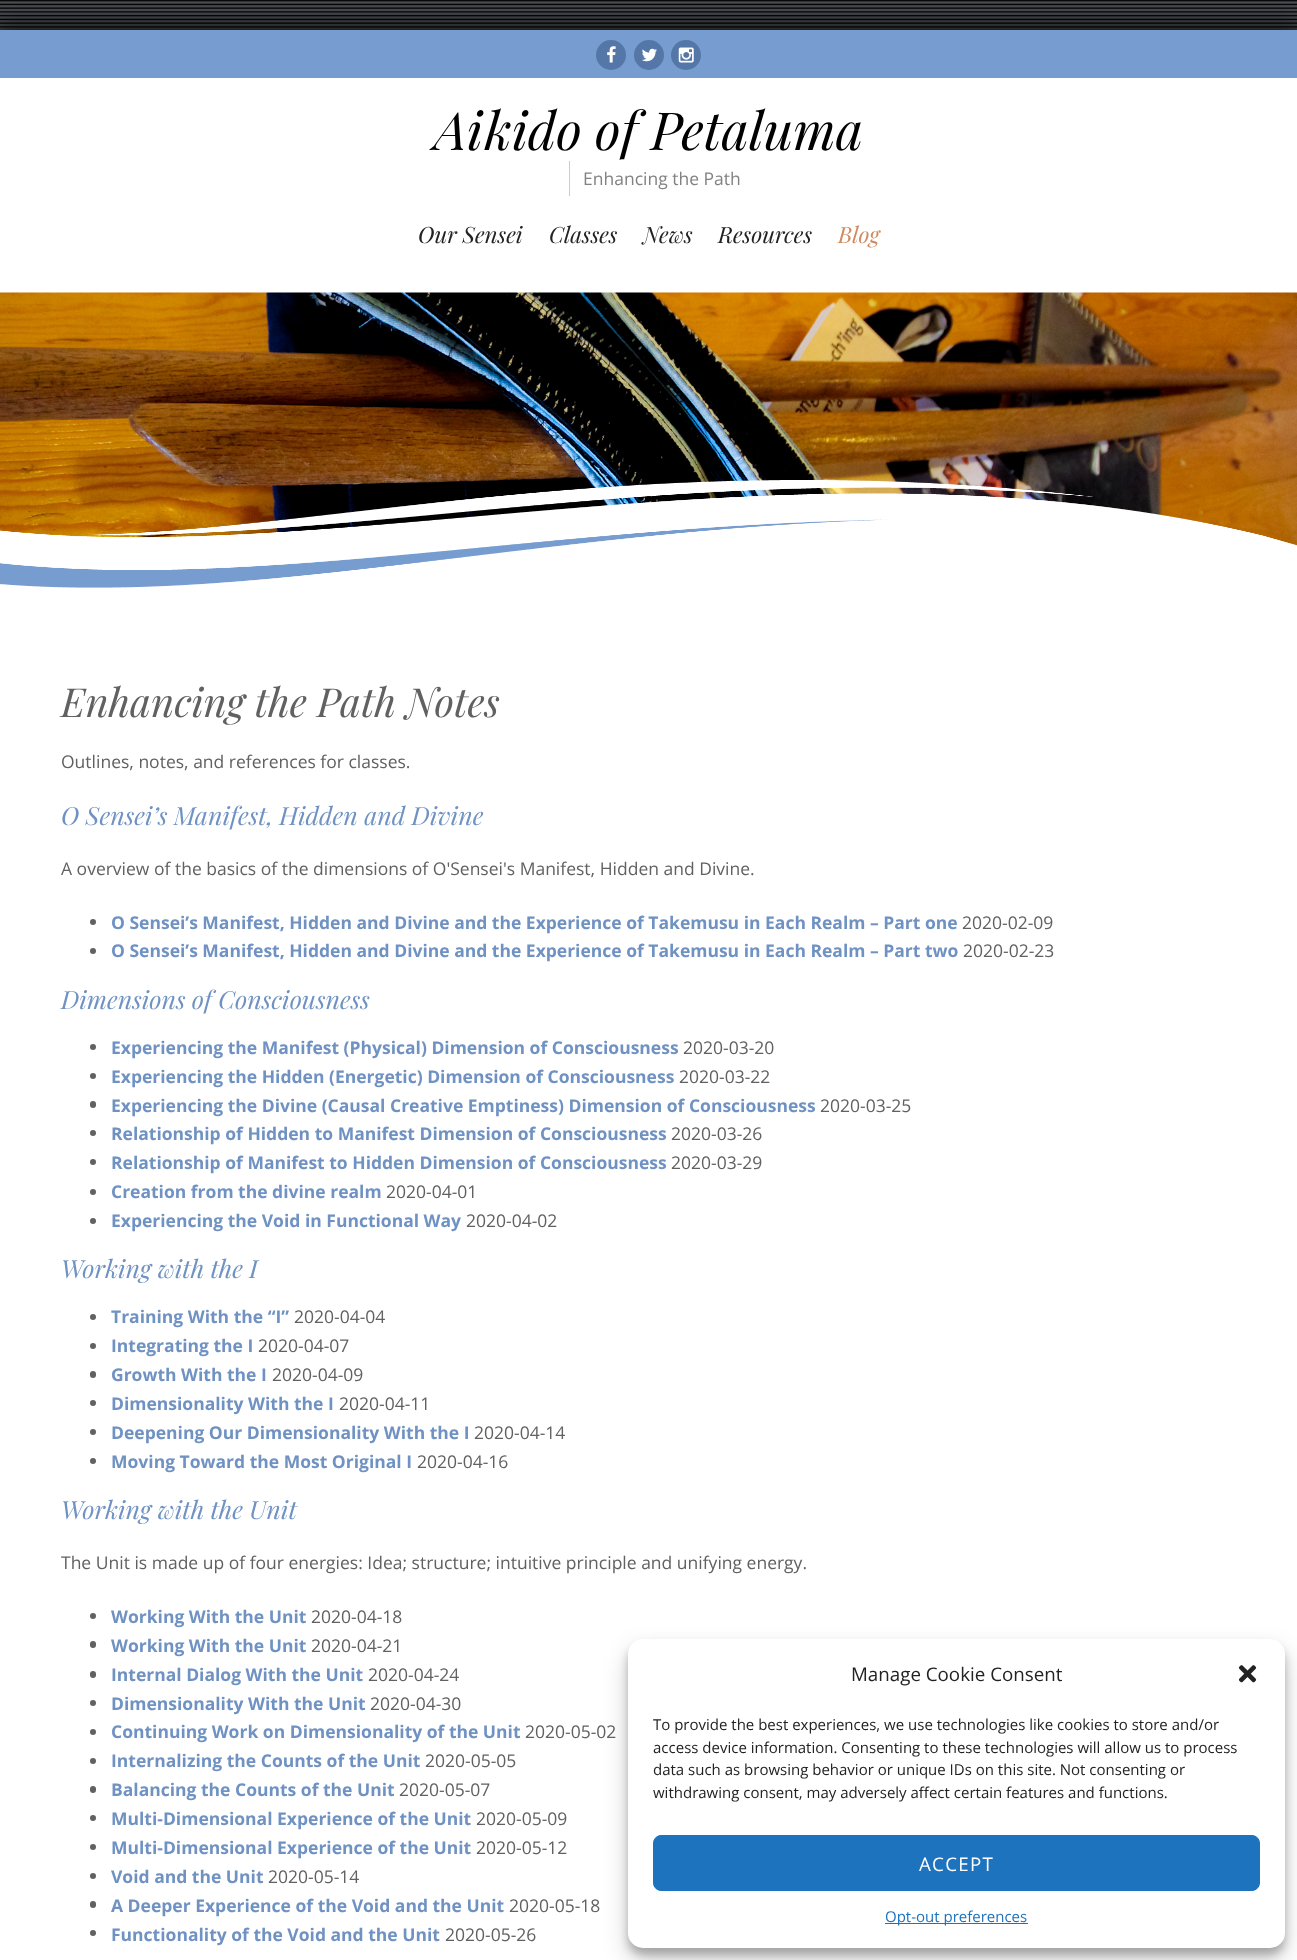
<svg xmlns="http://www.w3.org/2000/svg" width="1297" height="1960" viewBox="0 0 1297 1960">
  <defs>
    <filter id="blur1" x="-50%" y="-200%" width="200%" height="500%"><feGaussianBlur stdDeviation="12.5"/></filter>
    <filter id="blur2" x="-50%" y="-200%" width="200%" height="500%"><feGaussianBlur stdDeviation="4"/></filter>
  </defs>
  <rect width="100%" height="100%" fill="#494d51"/>
  <image x="0" y="0" width="1297" height="30" href="img1.png"/>
  <rect x="-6" y="24" width="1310" height="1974" fill="#000000" fill-opacity="0.75" filter="url(#blur1)"/>
  <rect x="0" y="30" width="1297" height="48" fill="#769cd0"/>
  <circle cx="611" cy="55" r="15" fill="#5477a7"/>
  <image x="607" y="46" width="9" height="17" href="img2.png"/>
  <circle cx="649" cy="55" r="15" fill="#5477a7"/>
  <image x="642" y="48" width="15" height="14" href="img3.png"/>
  <circle cx="686" cy="55" r="15" fill="#5477a7"/>
  <image x="678" y="47" width="16" height="16" href="img4.png"/>
  <rect x="0" y="78" width="1297" height="215" fill="#ffffff"/>
  <text x="434" y="150" font-family="Playfair Display" font-size="52.5" font-style="italic" fill="#000000">Aikido of Petaluma</text>
  <rect x="569" y="161" width="1" height="35" fill="#cccccc"/>
  <text x="583" y="185" font-family="Open Sans" font-size="17.5" fill="#828282">Enhancing the Path</text>
  <text x="418" y="243" font-family="Playfair Display" font-size="22.5" font-style="italic" fill="#222222">Our Sensei</text>
  <text x="549" y="243" font-family="Playfair Display" font-size="22.5" font-style="italic" fill="#222222">Classes</text>
  <text x="643" y="243" font-family="Playfair Display" font-size="22.5" font-style="italic" fill="#222222">News</text>
  <text x="718" y="243" font-family="Playfair Display" font-size="22.5" font-style="italic" fill="#222222">Resources</text>
  <text x="838" y="243" font-family="Playfair Display" font-size="22.5" font-style="italic" fill="#d28a5f">Blog</text>
  <image x="0" y="292" width="1297" height="254" href="img5.png"/>
  <image x="0" y="480" width="1297" height="108" href="img6.png"/>
  <rect x="0" y="588" width="1297" height="1372" fill="#ffffff"/>
  <text x="61" y="717" font-family="Playfair Display" font-size="40" font-style="italic" fill="#616161">Enhancing the Path Notes</text>
  <text x="61" y="768" font-family="Open Sans" font-size="17.5" fill="#616161">Outlines, notes, and references for classes.</text>
  <text x="61" y="825" font-family="Playfair Display" font-size="25" font-style="italic" fill="#6f92c3">O Sensei’s Manifest, Hidden and Divine</text>
  <text x="61" y="875" font-family="Open Sans" font-size="17.5" fill="#616161">A overview of the basics of the dimensions of O'Sensei's Manifest, Hidden and Divine.</text>
  <circle cx="93" cy="922" r="3" fill="#616161"/>
  <text x="111" y="929" font-family="Open Sans" font-size="17.5" font-weight="bold" fill="#6f92c3">O Sensei’s Manifest, Hidden and Divine and the Experience of Takemusu in Each Realm – Part one</text>
  <text x="962" y="929" font-family="Open Sans" font-size="17.5" fill="#616161">2020-02-09</text>
  <circle cx="93" cy="951" r="3" fill="#616161"/>
  <text x="111" y="957" font-family="Open Sans" font-size="17.5" font-weight="bold" fill="#6f92c3">O Sensei’s Manifest, Hidden and Divine and the Experience of Takemusu in Each Realm – Part two</text>
  <text x="963" y="957" font-family="Open Sans" font-size="17.5" fill="#616161">2020-02-23</text>
  <text x="61" y="1009" font-family="Playfair Display" font-size="25" font-style="italic" fill="#6f92c3">Dimensions of Consciousness</text>
  <circle cx="93" cy="1047" r="3" fill="#616161"/>
  <text x="111" y="1054" font-family="Open Sans" font-size="17.5" font-weight="bold" fill="#6f92c3">Experiencing the Manifest (Physical) Dimension of Consciousness</text>
  <text x="683" y="1054" font-family="Open Sans" font-size="17.5" fill="#616161">2020-03-20</text>
  <circle cx="93" cy="1076" r="3" fill="#616161"/>
  <text x="111" y="1083" font-family="Open Sans" font-size="17.5" font-weight="bold" fill="#6f92c3">Experiencing the Hidden (Energetic) Dimension of Consciousness</text>
  <text x="679" y="1083" font-family="Open Sans" font-size="17.5" fill="#616161">2020-03-22</text>
  <rect x="90" y="1101" width="6" height="7" rx="3" fill="#616161"/>
  <text x="111" y="1112" font-family="Open Sans" font-size="17.5" font-weight="bold" fill="#6f92c3">Experiencing the Divine (Causal Creative Emptiness) Dimension of Consciousness</text>
  <text x="820" y="1112" font-family="Open Sans" font-size="17.5" fill="#616161">2020-03-25</text>
  <circle cx="93" cy="1133" r="3" fill="#616161"/>
  <text x="111" y="1140" font-family="Open Sans" font-size="17.5" font-weight="bold" fill="#6f92c3">Relationship of Hidden to Manifest Dimension of Consciousness</text>
  <text x="671" y="1140" font-family="Open Sans" font-size="17.5" fill="#616161">2020-03-26</text>
  <circle cx="93" cy="1162" r="3" fill="#616161"/>
  <text x="111" y="1169" font-family="Open Sans" font-size="17.5" font-weight="bold" fill="#6f92c3">Relationship of Manifest to Hidden Dimension of Consciousness</text>
  <text x="671" y="1169" font-family="Open Sans" font-size="17.5" fill="#616161">2020-03-29</text>
  <circle cx="93" cy="1192" r="3" fill="#616161"/>
  <text x="111" y="1198" font-family="Open Sans" font-size="17.5" font-weight="bold" fill="#6f92c3">Creation from the divine realm</text>
  <text x="386" y="1198" font-family="Open Sans" font-size="17.5" fill="#616161">2020-04-01</text>
  <circle cx="93" cy="1221" r="3" fill="#616161"/>
  <text x="111" y="1227" font-family="Open Sans" font-size="17.5" font-weight="bold" fill="#6f92c3">Experiencing the Void in Functional Way</text>
  <text x="466" y="1227" font-family="Open Sans" font-size="17.5" fill="#616161">2020-04-02</text>
  <text x="61" y="1278" font-family="Playfair Display" font-size="25" font-style="italic" fill="#6f92c3">Working with the I</text>
  <circle cx="93" cy="1317" r="3" fill="#616161"/>
  <text x="111" y="1323" font-family="Open Sans" font-size="17.5" font-weight="bold" fill="#6f92c3">Training With the “I”</text>
  <text x="294" y="1323" font-family="Open Sans" font-size="17.5" fill="#616161">2020-04-04</text>
  <circle cx="93" cy="1346" r="3" fill="#616161"/>
  <text x="111" y="1352" font-family="Open Sans" font-size="17.5" font-weight="bold" fill="#6f92c3">Integrating the I</text>
  <text x="258" y="1352" font-family="Open Sans" font-size="17.5" fill="#616161">2020-04-07</text>
  <rect x="90" y="1371" width="6" height="7" rx="3" fill="#616161"/>
  <text x="111" y="1381" font-family="Open Sans" font-size="17.5" font-weight="bold" fill="#6f92c3">Growth With the I</text>
  <text x="272" y="1381" font-family="Open Sans" font-size="17.5" fill="#616161">2020-04-09</text>
  <circle cx="93" cy="1403" r="3" fill="#616161"/>
  <text x="111" y="1410" font-family="Open Sans" font-size="17.5" font-weight="bold" fill="#6f92c3">Dimensionality With the I</text>
  <text x="339" y="1410" font-family="Open Sans" font-size="17.5" fill="#616161">2020-04-11</text>
  <circle cx="93" cy="1432" r="3" fill="#616161"/>
  <text x="111" y="1439" font-family="Open Sans" font-size="17.5" font-weight="bold" fill="#6f92c3">Deepening Our Dimensionality With the I</text>
  <text x="474" y="1439" font-family="Open Sans" font-size="17.5" fill="#616161">2020-04-14</text>
  <circle cx="93" cy="1461" r="3" fill="#616161"/>
  <text x="111" y="1468" font-family="Open Sans" font-size="17.5" font-weight="bold" fill="#6f92c3">Moving Toward the Most Original I</text>
  <text x="417" y="1468" font-family="Open Sans" font-size="17.5" fill="#616161">2020-04-16</text>
  <text x="61" y="1519" font-family="Playfair Display" font-size="25" font-style="italic" fill="#6f92c3">Working with the Unit</text>
  <text x="61" y="1569" font-family="Open Sans" font-size="17.5" fill="#616161">The Unit is made up of four energies: Idea; structure; intuitive principle and unifying energy.</text>
  <circle cx="93" cy="1616" r="3" fill="#616161"/>
  <text x="111" y="1623" font-family="Open Sans" font-size="17.5" font-weight="bold" fill="#6f92c3">Working With the Unit</text>
  <text x="311" y="1623" font-family="Open Sans" font-size="17.5" fill="#616161">2020-04-18</text>
  <rect x="90" y="1641" width="6" height="7" rx="3" fill="#616161"/>
  <text x="111" y="1652" font-family="Open Sans" font-size="17.5" font-weight="bold" fill="#6f92c3">Working With the Unit</text>
  <text x="311" y="1652" font-family="Open Sans" font-size="17.5" fill="#616161">2020-04-21</text>
  <rect x="90" y="1671" width="6" height="7" rx="3" fill="#616161"/>
  <text x="111" y="1681" font-family="Open Sans" font-size="17.5" font-weight="bold" fill="#6f92c3">Internal Dialog With the Unit</text>
  <text x="368" y="1681" font-family="Open Sans" font-size="17.5" fill="#616161">2020-04-24</text>
  <circle cx="93" cy="1703" r="3" fill="#616161"/>
  <text x="111" y="1710" font-family="Open Sans" font-size="17.5" font-weight="bold" fill="#6f92c3">Dimensionality With the Unit</text>
  <text x="370" y="1710" font-family="Open Sans" font-size="17.5" fill="#616161">2020-04-30</text>
  <circle cx="93" cy="1732" r="3" fill="#616161"/>
  <text x="111" y="1738" font-family="Open Sans" font-size="17.5" font-weight="bold" fill="#6f92c3">Continuing Work on Dimensionality of the Unit</text>
  <text x="525" y="1738" font-family="Open Sans" font-size="17.5" fill="#616161">2020-05-02</text>
  <circle cx="93" cy="1761" r="3" fill="#616161"/>
  <text x="111" y="1767" font-family="Open Sans" font-size="17.5" font-weight="bold" fill="#6f92c3">Internalizing the Counts of the Unit</text>
  <text x="425" y="1767" font-family="Open Sans" font-size="17.5" fill="#616161">2020-05-05</text>
  <rect x="90" y="1786" width="6" height="7" rx="3" fill="#616161"/>
  <text x="111" y="1796" font-family="Open Sans" font-size="17.5" font-weight="bold" fill="#6f92c3">Balancing the Counts of the Unit</text>
  <text x="399" y="1796" font-family="Open Sans" font-size="17.5" fill="#616161">2020-05-07</text>
  <circle cx="93" cy="1818" r="3" fill="#616161"/>
  <text x="111" y="1825" font-family="Open Sans" font-size="17.5" font-weight="bold" fill="#6f92c3">Multi-Dimensional Experience of the Unit</text>
  <text x="476" y="1825" font-family="Open Sans" font-size="17.5" fill="#616161">2020-05-09</text>
  <circle cx="93" cy="1847" r="3" fill="#616161"/>
  <text x="111" y="1854" font-family="Open Sans" font-size="17.5" font-weight="bold" fill="#6f92c3">Multi-Dimensional Experience of the Unit</text>
  <text x="476" y="1854" font-family="Open Sans" font-size="17.5" fill="#616161">2020-05-12</text>
  <circle cx="93" cy="1876" r="3" fill="#616161"/>
  <text x="111" y="1883" font-family="Open Sans" font-size="17.5" font-weight="bold" fill="#6f92c3">Void and the Unit</text>
  <text x="268" y="1883" font-family="Open Sans" font-size="17.5" fill="#616161">2020-05-14</text>
  <rect x="90" y="1901" width="6" height="7" rx="3" fill="#616161"/>
  <text x="111" y="1912" font-family="Open Sans" font-size="17.5" font-weight="bold" fill="#6f92c3">A Deeper Experience of the Void and the Unit</text>
  <text x="509" y="1912" font-family="Open Sans" font-size="17.5" fill="#616161">2020-05-18</text>
  <circle cx="93" cy="1933" r="3" fill="#616161"/>
  <text x="111" y="1941" font-family="Open Sans" font-size="17.5" font-weight="bold" fill="#6f92c3">Functionality of the Void and the Unit</text>
  <text x="445" y="1941" font-family="Open Sans" font-size="17.5" fill="#616161">2020-05-26</text>
  <rect x="628" y="1646" width="657" height="309" rx="15" fill="#000000" fill-opacity="0.23" filter="url(#blur2)"/>
  <rect x="628" y="1651" width="657" height="309" rx="15" fill="#000000" fill-opacity="0.19" filter="url(#blur1)"/>
  <rect x="628" y="1639" width="657" height="309" rx="15" fill="#ffffff"/>
  <text x="851" y="1681" font-family="Open Sans" font-size="18.75" fill="#222222">Manage Cookie Consent</text>
  <image x="1238" y="1665" width="19" height="18" href="img7.png"/>
  <text x="653" y="1730" font-family="Open Sans" font-size="15" fill="#222222">To provide the best experiences, we use technologies like cookies to store and/or</text>
  <text x="653" y="1753" font-family="Open Sans" font-size="15" fill="#222222">access device information. Consenting to these technologies will allow us to process</text>
  <text x="653" y="1775" font-family="Open Sans" font-size="15" fill="#222222">data such as browsing behavior or unique IDs on this site. Not consenting or</text>
  <text x="653" y="1798" font-family="Open Sans" font-size="15" fill="#222222">withdrawing consent, may adversely affect certain features and functions.</text>
  <rect x="653.5" y="1835.5" width="606" height="55" rx="7.5" fill="#1e73be" stroke="#1e73be"/>
  <text x="919" y="1871" font-family="Open Sans" font-size="18.75" letter-spacing="1.25" fill="#ffffff">ACCEPT</text>
  <rect x="885" y="1923" width="143" height="1" fill="#1e73be"/>
  <text x="885" y="1922" font-family="Open Sans" font-size="15" fill="#1e73be">Opt-out preferences</text>
</svg>
